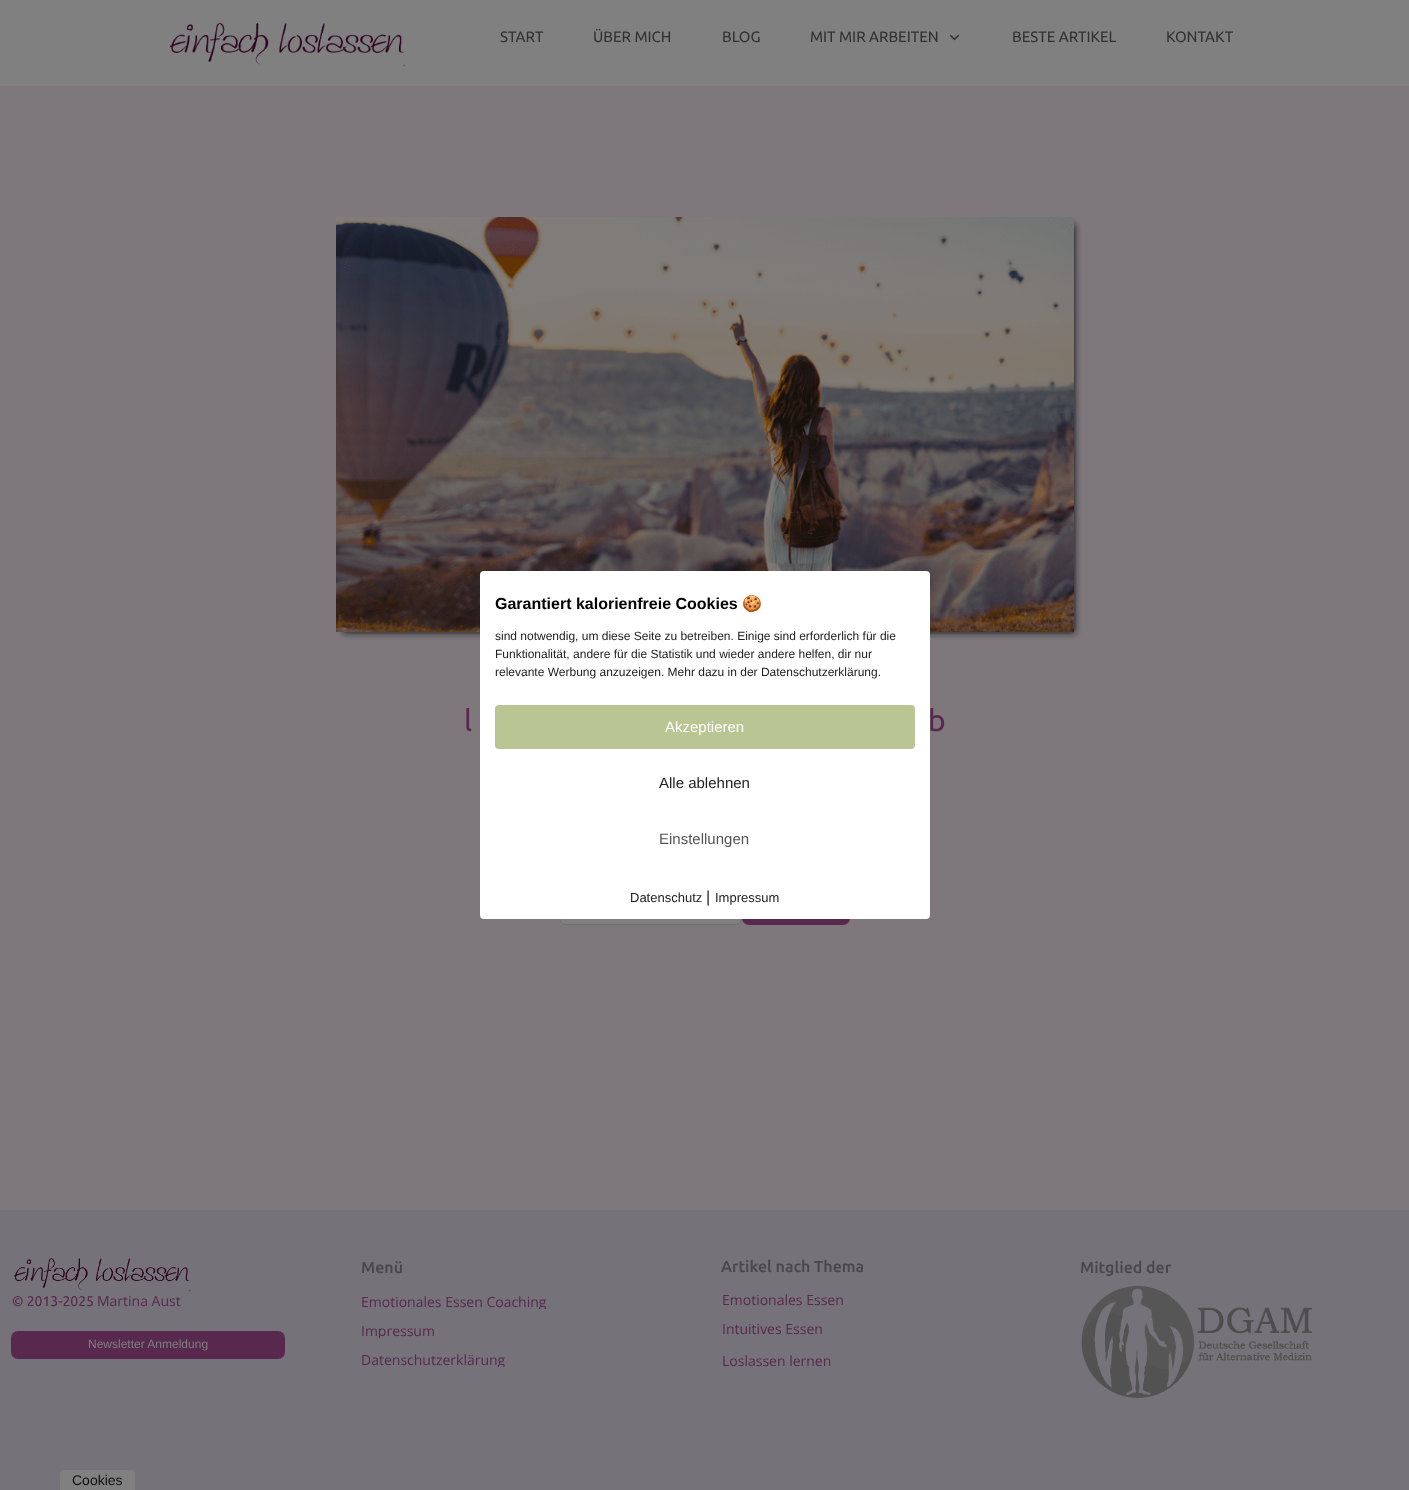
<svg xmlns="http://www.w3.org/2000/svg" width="1409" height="1490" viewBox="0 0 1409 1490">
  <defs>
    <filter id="blur1" x="-50%" y="-200%" width="200%" height="500%"><feGaussianBlur stdDeviation="3"/></filter>
    <clipPath id="clip1"><rect x="361" y="1294" width="186" height="15"/></clipPath>
    <clipPath id="clip2"><rect x="361" y="1323" width="74" height="15"/></clipPath>
    <clipPath id="clip3"><rect x="361" y="1352" width="144" height="15"/></clipPath>
  </defs>
  <rect width="100%" height="100%" fill="#7e787d"/>
  <rect x="0" y="0" width="1409" height="86" fill="#808080"/>
  <image x="169" y="23" width="236" height="44" href="img1.png"/>
  <text x="500" y="42" font-family="Ubuntu" font-size="15" fill="#313131">START</text>
  <text x="593" y="42" font-family="Ubuntu" font-size="15" fill="#313131">ÜBER MICH</text>
  <text x="722" y="42" font-family="Ubuntu" font-size="15" fill="#313131">BLOG</text>
  <text x="810" y="42" font-family="Ubuntu" font-size="15" fill="#313131">MIT MIR ARBEITEN</text>
  <image x="949" y="34" width="11" height="7" href="img2.png"/>
  <text x="1012" y="42" font-family="Ubuntu" font-size="15" fill="#313131">BESTE ARTIKEL</text>
  <text x="1166" y="42" font-family="Ubuntu" font-size="15" fill="#313131">KONTAKT</text>
  <rect x="343" y="224" width="732" height="409" fill="#1a1a1a" filter="url(#blur1)"/>
  <image x="336" y="217" width="738" height="415" href="img3.png"/>
  <text x="464" y="731" font-family="Ubuntu" font-size="30" fill="#58284e">l</text>
  <text x="928" y="731" font-family="Ubuntu" font-size="30" fill="#58284e">b</text>
  <rect x="559" y="881" width="183" height="44" rx="7" fill="#808080"/>
  <rect x="559.5" y="881.5" width="182" height="43" rx="6.5" fill="none" stroke="#000000" stroke-opacity="0.12"/>
  <rect x="742" y="881" width="108" height="44" rx="7" fill="#58284e"/>
  <rect x="0" y="1210" width="1409" height="280" fill="#757379"/>
  <image x="14" y="1258" width="177" height="33" href="img4.png"/>
  <text x="12" y="1306" font-family="Ubuntu" font-size="14" fill="#58284e">© 2013-2025</text>
  <text x="97" y="1306" font-family="Open Sans" font-size="14" fill="#58284e">Martina Aust</text>
  <rect x="11" y="1331" width="274" height="28" rx="7" fill="#58284e"/>
  <text x="88" y="1348" font-family="Liberation Sans" font-size="12" fill="#808080">Newsletter Anmeldung</text>
  <text x="361" y="1273" font-family="Ubuntu" font-size="16" font-weight="500" fill="#48484a">Menü</text>
  <g clip-path="url(#clip1)">
    <text x="361" y="1307" font-family="Open Sans" font-size="14" fill="#58284e">Emotionales Essen Coaching</text>
  </g>
  <g clip-path="url(#clip2)">
    <text x="361" y="1336" font-family="Open Sans" font-size="14" fill="#58284e">Impressum</text>
  </g>
  <g clip-path="url(#clip3)">
    <text x="361" y="1365" font-family="Open Sans" font-size="14" fill="#58284e">Datenschutzerklärung</text>
  </g>
  <text x="721" y="1272" font-family="Ubuntu" font-size="16" font-weight="500" fill="#48484a">Artikel nach Thema</text>
  <text x="722" y="1305" font-family="Open Sans" font-size="14" fill="#58284e">Emotionales Essen</text>
  <text x="722" y="1334" font-family="Open Sans" font-size="14" fill="#58284e">Intuitives Essen</text>
  <text x="722" y="1366" font-family="Open Sans" font-size="14" fill="#58284e">Loslassen lernen</text>
  <text x="1080" y="1273" font-family="Ubuntu" font-size="16" font-weight="500" fill="#48484a">Mitglied der</text>
  <image x="1081" y="1285" width="231" height="114" href="img5.png"/>
  <rect x="480" y="571" width="450" height="348" rx="4" fill="#ffffff"/>
  <text x="495" y="609" font-family="Liberation Sans" font-size="16" font-weight="bold" fill="#000000">Garantiert kalorienfreie Cookies</text>
  <text x="742" y="609" font-family="Noto Color Emoji" font-size="16" font-weight="bold" fill="#000000">🍪</text>
  <text x="495" y="640" font-family="Liberation Sans" font-size="12" fill="#212121">sind notwendig, um diese Seite zu betreiben. Einige sind erforderlich für die</text>
  <text x="495" y="658" font-family="Liberation Sans" font-size="12" fill="#212121">Funktionalität, andere für die Statistik und wieder andere helfen, dir nur</text>
  <text x="495" y="676" font-family="Liberation Sans" font-size="12" fill="#212121">relevante Werbung anzuzeigen. Mehr dazu in der Datenschutzerklärung.</text>
  <rect x="495" y="705" width="420" height="44" rx="4" fill="#b9c693"/>
  <text x="665" y="732" font-family="Liberation Sans" font-size="15" fill="#ffffff">Akzeptieren</text>
  <text x="659" y="788" font-family="Liberation Sans" font-size="15" fill="#212121">Alle ablehnen</text>
  <text x="659" y="844" font-family="Liberation Sans" font-size="15" fill="#555555">Einstellungen</text>
  <text x="630" y="902" font-family="Liberation Sans" font-size="13" fill="#212121">Datenschutz</text>
  <text x="706" y="902" font-family="Liberation Sans" font-size="16" fill="#212121">|</text>
  <text x="715" y="902" font-family="Liberation Sans" font-size="13" fill="#212121">Impressum</text>
  <path d="M64 1470H131C133 1470 135 1472 135 1474V1490H60V1474C60 1472 62 1470 64 1470Z" fill="#808080"/>
  <text x="72" y="1485" font-family="Liberation Sans" font-size="14" fill="#111111">Cookies</text>
</svg>
